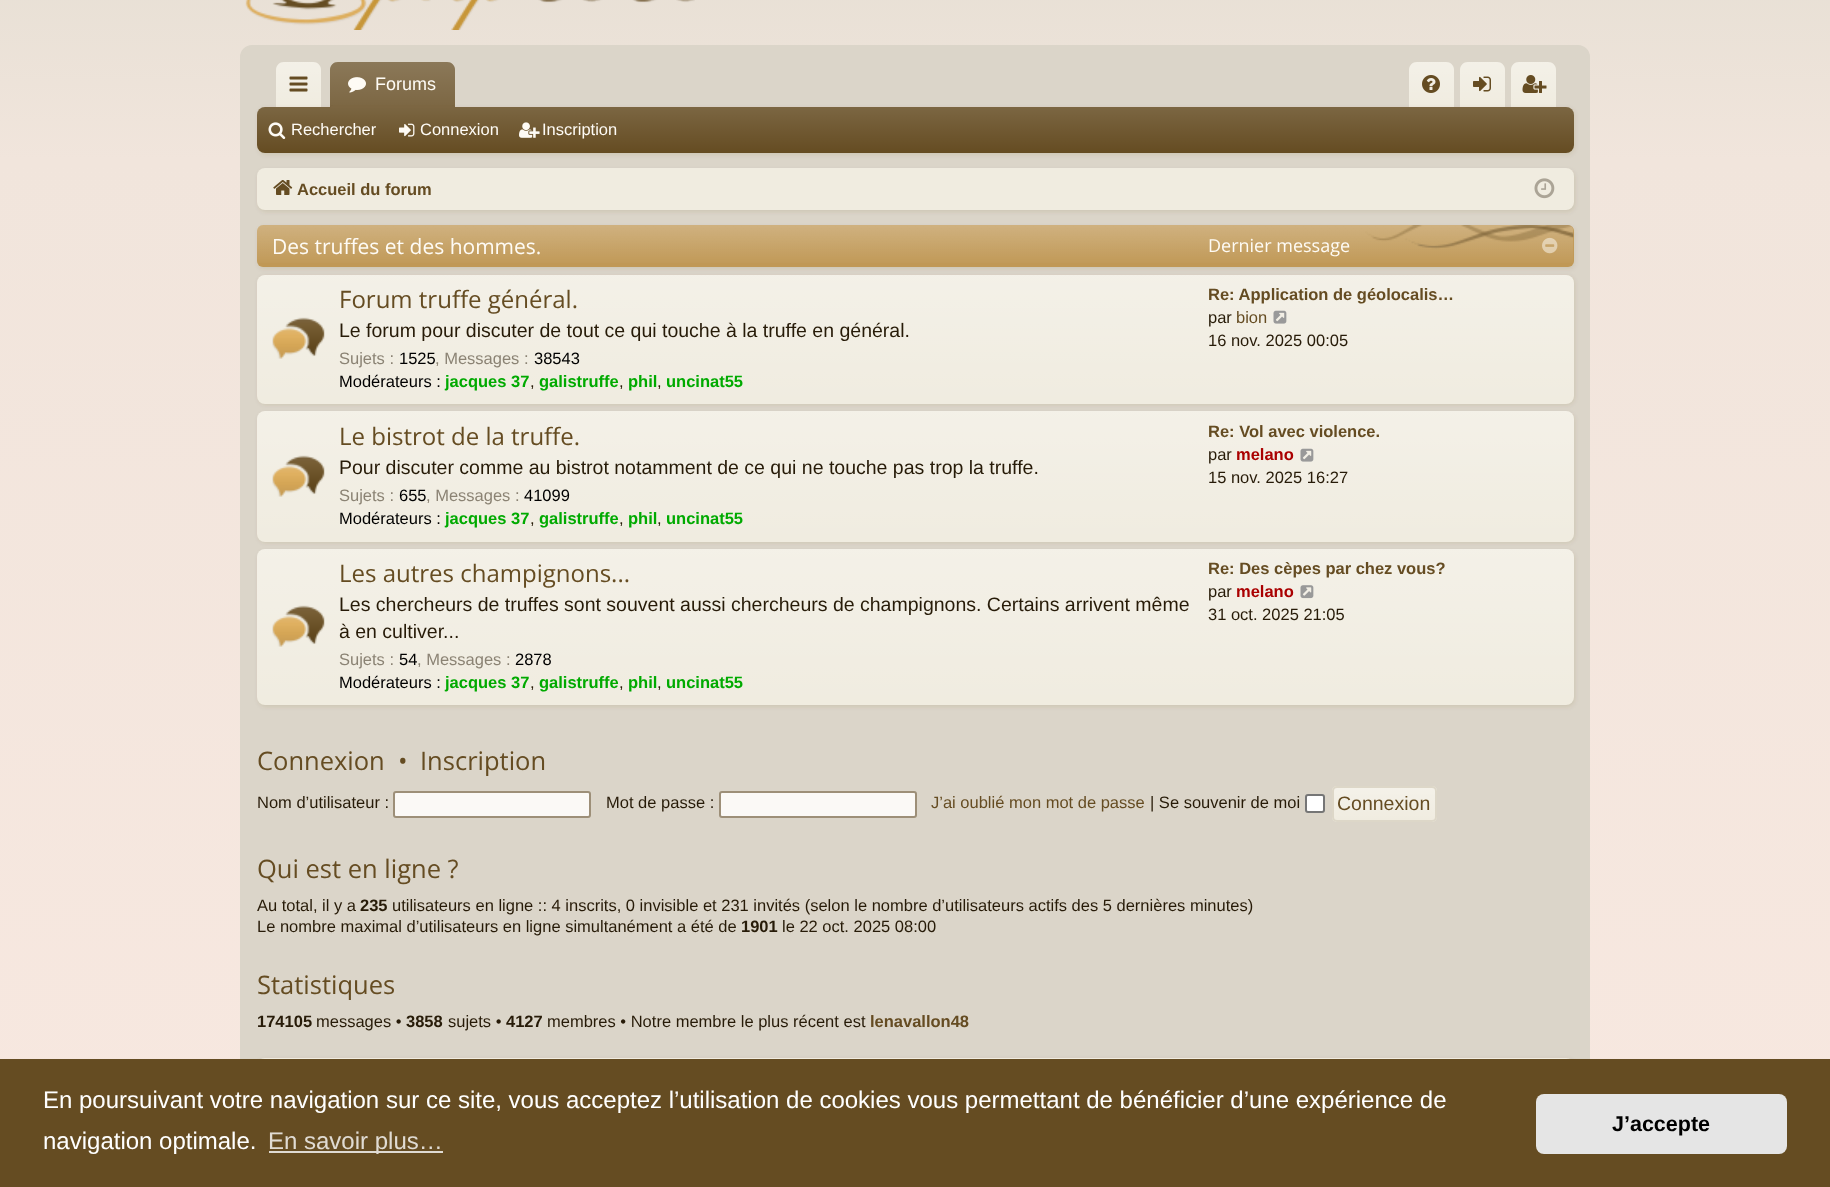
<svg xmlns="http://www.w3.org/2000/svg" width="1830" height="1187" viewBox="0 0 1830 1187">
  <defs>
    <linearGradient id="g1" gradientUnits="userSpaceOnUse" x1="915" y1="-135" x2="915" y2="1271"><stop offset="0" stop-color="#e2ddd1"/><stop offset="0.21" stop-color="#f1e5dc"/><stop offset="1" stop-color="#f8e8e0"/></linearGradient>
    <linearGradient id="g2" gradientUnits="userSpaceOnUse" x1="299" y1="62" x2="299" y2="107"><stop offset="0" stop-color="#ffffff" stop-opacity="0.25"/><stop offset="1" stop-color="#ffffff" stop-opacity="0"/></linearGradient>
    <linearGradient id="g3" gradientUnits="userSpaceOnUse" x1="392" y1="61" x2="392" y2="107"><stop offset="0" stop-color="#ffffff" stop-opacity="0.25"/><stop offset="1" stop-color="#ffffff" stop-opacity="0.15"/></linearGradient>
    <linearGradient id="g4" gradientUnits="userSpaceOnUse" x1="1431" y1="62" x2="1431" y2="107"><stop offset="0" stop-color="#ffffff" stop-opacity="0.25"/><stop offset="1" stop-color="#ffffff" stop-opacity="0"/></linearGradient>
    <linearGradient id="g5" gradientUnits="userSpaceOnUse" x1="1482" y1="62" x2="1482" y2="107"><stop offset="0" stop-color="#ffffff" stop-opacity="0.25"/><stop offset="1" stop-color="#ffffff" stop-opacity="0"/></linearGradient>
    <linearGradient id="g6" gradientUnits="userSpaceOnUse" x1="1533" y1="62" x2="1533" y2="107"><stop offset="0" stop-color="#ffffff" stop-opacity="0.25"/><stop offset="1" stop-color="#ffffff" stop-opacity="0"/></linearGradient>
    <filter id="blur1" x="-50%" y="-200%" width="200%" height="500%"><feGaussianBlur stdDeviation="2"/></filter>
    <linearGradient id="g7" gradientUnits="userSpaceOnUse" x1="915" y1="106" x2="915" y2="153"><stop offset="0" stop-color="#ffffff" stop-opacity="0.15"/><stop offset="1" stop-color="#ffffff" stop-opacity="0"/></linearGradient>
    <linearGradient id="g8" gradientUnits="userSpaceOnUse" x1="915" y1="274" x2="915" y2="404"><stop offset="0" stop-color="#ffffff" stop-opacity="0.25"/><stop offset="1" stop-color="#ffffff" stop-opacity="0"/></linearGradient>
    <linearGradient id="g9" gradientUnits="userSpaceOnUse" x1="915" y1="411" x2="915" y2="542"><stop offset="0" stop-color="#ffffff" stop-opacity="0.25"/><stop offset="1" stop-color="#ffffff" stop-opacity="0"/></linearGradient>
    <linearGradient id="g10" gradientUnits="userSpaceOnUse" x1="915" y1="549" x2="915" y2="705"><stop offset="0" stop-color="#ffffff" stop-opacity="0.25"/><stop offset="1" stop-color="#ffffff" stop-opacity="0"/></linearGradient>
    <clipPath id="clip1"><rect x="1332" y="786" width="105" height="36" rx="5"/></clipPath>
    <linearGradient id="g11" gradientUnits="userSpaceOnUse" x1="1385" y1="788" x2="1385" y2="821"><stop offset="0" stop-color="#ffffff" stop-opacity="0.3"/><stop offset="1" stop-color="#ffffff" stop-opacity="0"/></linearGradient>
  </defs>
  <rect width="100%" height="100%" fill="#ffffff"/>
  <rect x="0" y="0" width="1830" height="1059" fill="url(#g1)"/>
  <image x="245" y="0" width="450" height="30" href="img1.png"/>
  <rect x="241" y="46" width="1348" height="1068" rx="11" fill="#dbd5c9" stroke="#dbd5c9" stroke-width="2"/>
  <path d="M284 62H313C317.5 62 321 65.5 321 70V107H276V70C276 65.5 279.5 62 284 62Z" fill="#f0ece0"/>
  <path d="M284 62H313C317.5 62 321 65.5 321 70V107H276V70C276 65.5 279.5 62 284 62Z" fill="url(#g2)"/>
  <image x="289" y="76" width="19" height="16" href="img2.png"/>
  <path d="M338 62H447C451.5 62 455 65.5 455 70V107H330V70C330 65.5 333.5 62 338 62Z" fill="#654c22"/>
  <path d="M338 62H447C451.5 62 455 65.5 455 70V107H330V70C330 65.5 333.5 62 338 62Z" fill="url(#g3)"/>
  <image x="348" y="77" width="18" height="16" href="img3.png"/>
  <text x="375" y="90" font-family="Liberation Sans" font-size="18" fill="#fefbf5">Forums</text>
  <path d="M1417 62H1446C1450.5 62 1454 65.5 1454 70V107H1409V70C1409 65.5 1412.5 62 1417 62Z" fill="#f0ece0"/>
  <path d="M1417 62H1446C1450.5 62 1454 65.5 1454 70V107H1409V70C1409 65.5 1412.5 62 1417 62Z" fill="url(#g4)"/>
  <path d="M1468 62H1497C1501.5 62 1505 65.5 1505 70V107H1460V70C1460 65.5 1463.5 62 1468 62Z" fill="#f0ece0"/>
  <path d="M1468 62H1497C1501.5 62 1505 65.5 1505 70V107H1460V70C1460 65.5 1463.5 62 1468 62Z" fill="url(#g5)"/>
  <path d="M1519 62H1548C1552.5 62 1556 65.5 1556 70V107H1511V70C1511 65.5 1514.5 62 1519 62Z" fill="#f0ece0"/>
  <path d="M1519 62H1548C1552.5 62 1556 65.5 1556 70V107H1511V70C1511 65.5 1514.5 62 1519 62Z" fill="url(#g6)"/>
  <rect x="258" y="108" width="1317" height="47" rx="8" fill="#654c22" fill-opacity="0.1" filter="url(#blur1)"/>
  <rect x="257" y="107" width="1317" height="46" rx="8" fill="#654c22"/>
  <rect x="257" y="107" width="1317" height="46" rx="8" fill="url(#g7)"/>
  <path d="M333 105H452C453.5 105 455 106.5 455 108H330C330 106.5 331.5 105 333 105Z" fill="#654c22"/>
  <path d="M333 105H452C453.5 105 455 106.5 455 108H330C330 106.5 331.5 105 333 105Z" fill="#ffffff" fill-opacity="0.15"/>
  <image x="1422" y="75" width="18" height="18" href="img4.png"/>
  <image x="1473" y="76" width="18" height="16" href="img5.png"/>
  <image x="1522" y="75" width="25" height="18" href="img6.png"/>
  <image x="268" y="122" width="18" height="17" href="img7.png"/>
  <text x="291" y="135" font-family="Liberation Sans" font-size="16.5" fill="#fefbf5">Rechercher</text>
  <image x="399" y="123" width="16" height="14" href="img8.png"/>
  <text x="420" y="135" font-family="Liberation Sans" font-size="16.5" fill="#fefbf5">Connexion</text>
  <image x="519" y="122" width="21" height="16" href="img9.png"/>
  <text x="542" y="135" font-family="Liberation Sans" font-size="16.5" fill="#fefbf5">Inscription</text>
  <rect x="258" y="170" width="1317" height="42" rx="8" fill="#654c22" fill-opacity="0.1" filter="url(#blur1)"/>
  <rect x="257" y="168" width="1317" height="42" rx="8" fill="#f0ece0"/>
  <image x="273" y="180" width="20" height="15" href="img10.png"/>
  <text x="297" y="195" font-family="Liberation Sans" font-size="16.5" font-weight="bold" fill="#654c22">Accueil du forum</text>
  <image x="1534" y="178" width="21" height="21" href="img11.png"/>
  <rect x="258" y="276" width="1317" height="129" rx="8" fill="#654c22" fill-opacity="0.1" filter="url(#blur1)"/>
  <rect x="257" y="275" width="1317" height="129" rx="8" fill="#f0ece0"/>
  <rect x="257" y="275" width="1317" height="129" rx="8" fill="url(#g8)"/>
  <rect x="258" y="227" width="1317" height="42" rx="6" fill="#654c22" fill-opacity="0.1" filter="url(#blur1)"/>
  <rect x="257" y="225" width="1317" height="42" rx="6" fill="#c09855"/>
  <image x="257" y="225" width="1317" height="38" href="img12.png"/>
  <text x="272" y="254" font-family="Open Sans" font-size="21" fill="#fefbf5">Des truffes et des hommes.</text>
  <text x="1208" y="252" font-family="Open Sans" font-size="18" fill="#fefbf5">Dernier message</text>
  <image x="1542" y="237" width="16" height="17" href="img13.png"/>
  <image x="272" y="317" width="53" height="42" href="img14.png"/>
  <text x="339" y="308" font-family="Open Sans" font-size="24" fill="#654c22">Forum truffe général.</text>
  <text x="339" y="337" font-family="Liberation Sans" font-size="19.5" fill="#271b08">Le forum pour discuter de tout ce qui touche à la truffe en général.</text>
  <text x="339" y="364" font-family="Liberation Sans" font-size="16.5" fill="#8b8374">Sujets :</text>
  <text x="399" y="364" font-family="Liberation Sans" font-size="16.5" fill="#000000">1525</text>
  <text x="435" y="364" font-family="Liberation Sans" font-size="16.5" fill="#8b8374">, Messages :</text>
  <text x="534" y="364" font-family="Liberation Sans" font-size="16.5" fill="#000000">38543</text>
  <text x="339" y="387" font-family="Liberation Sans" font-size="16.5" fill="#000000">Modérateurs :</text>
  <text x="445" y="387" font-family="Liberation Sans" font-size="16.5" font-weight="bold" fill="#00aa00">jacques 37</text>
  <text x="530" y="387" font-family="Liberation Sans" font-size="16.5" fill="#271b08">,</text>
  <text x="539" y="387" font-family="Liberation Sans" font-size="16.5" font-weight="bold" fill="#00aa00">galistruffe</text>
  <text x="619" y="387" font-family="Liberation Sans" font-size="16.5" fill="#271b08">,</text>
  <text x="628" y="387" font-family="Liberation Sans" font-size="16.5" font-weight="bold" fill="#00aa00">phil</text>
  <text x="657" y="387" font-family="Liberation Sans" font-size="16.5" fill="#271b08">,</text>
  <text x="666" y="387" font-family="Liberation Sans" font-size="16.5" font-weight="bold" fill="#00aa00">uncinat55</text>
  <text x="1208" y="300" font-family="Liberation Sans" font-size="16.5" font-weight="bold" fill="#654c22">Re: Application de géolocalis…</text>
  <text x="1208" y="323" font-family="Liberation Sans" font-size="16.5" fill="#271b08">par</text>
  <text x="1236" y="323" font-family="Liberation Sans" font-size="16.5" fill="#654c22">bion</text>
  <image x="1273" y="310" width="14" height="14" href="img15.png"/>
  <text x="1208" y="346" font-family="Liberation Sans" font-size="16.5" fill="#271b08">16 nov. 2025 00:05</text>
  <rect x="258" y="413" width="1317" height="130" rx="8" fill="#654c22" fill-opacity="0.1" filter="url(#blur1)"/>
  <rect x="257" y="411" width="1317" height="131" rx="8" fill="#f0ece0"/>
  <rect x="257" y="411" width="1317" height="131" rx="8" fill="url(#g9)"/>
  <image x="272" y="455" width="53" height="42" href="img16.png"/>
  <text x="339" y="445" font-family="Open Sans" font-size="24" fill="#654c22">Le bistrot de la truffe.</text>
  <text x="339" y="474" font-family="Liberation Sans" font-size="19.5" fill="#271b08">Pour discuter comme au bistrot notamment de ce qui ne touche pas trop la truffe.</text>
  <text x="339" y="501" font-family="Liberation Sans" font-size="16.5" fill="#8b8374">Sujets :</text>
  <text x="399" y="501" font-family="Liberation Sans" font-size="16.5" fill="#000000">655</text>
  <text x="426" y="501" font-family="Liberation Sans" font-size="16.5" fill="#8b8374">, Messages :</text>
  <text x="524" y="501" font-family="Liberation Sans" font-size="16.5" fill="#000000">41099</text>
  <text x="339" y="524" font-family="Liberation Sans" font-size="16.5" fill="#000000">Modérateurs :</text>
  <text x="445" y="524" font-family="Liberation Sans" font-size="16.5" font-weight="bold" fill="#00aa00">jacques 37</text>
  <text x="530" y="524" font-family="Liberation Sans" font-size="16.5" fill="#271b08">,</text>
  <text x="539" y="524" font-family="Liberation Sans" font-size="16.5" font-weight="bold" fill="#00aa00">galistruffe</text>
  <text x="619" y="524" font-family="Liberation Sans" font-size="16.5" fill="#271b08">,</text>
  <text x="628" y="524" font-family="Liberation Sans" font-size="16.5" font-weight="bold" fill="#00aa00">phil</text>
  <text x="657" y="524" font-family="Liberation Sans" font-size="16.5" fill="#271b08">,</text>
  <text x="666" y="524" font-family="Liberation Sans" font-size="16.5" font-weight="bold" fill="#00aa00">uncinat55</text>
  <text x="1208" y="437" font-family="Liberation Sans" font-size="16.5" font-weight="bold" fill="#654c22">Re: Vol avec violence.</text>
  <text x="1208" y="460" font-family="Liberation Sans" font-size="16.5" fill="#271b08">par</text>
  <text x="1236" y="460" font-family="Liberation Sans" font-size="16.5" font-weight="bold" fill="#aa0000">melano</text>
  <image x="1300" y="448" width="14" height="14" href="img15.png"/>
  <text x="1208" y="483" font-family="Liberation Sans" font-size="16.5" fill="#271b08">15 nov. 2025 16:27</text>
  <rect x="258" y="551" width="1317" height="156" rx="8" fill="#654c22" fill-opacity="0.1" filter="url(#blur1)"/>
  <rect x="257" y="549" width="1317" height="156" rx="8" fill="#f0ece0"/>
  <rect x="257" y="549" width="1317" height="156" rx="8" fill="url(#g10)"/>
  <image x="272" y="605" width="53" height="42" href="img17.png"/>
  <text x="339" y="582" font-family="Open Sans" font-size="24" fill="#654c22">Les autres champignons...</text>
  <text x="339" y="611" font-family="Liberation Sans" font-size="19.5" fill="#271b08">Les chercheurs de truffes sont souvent aussi chercheurs de champignons. Certains arrivent même</text>
  <text x="339" y="638" font-family="Liberation Sans" font-size="19.5" fill="#271b08">à en cultiver...</text>
  <text x="339" y="665" font-family="Liberation Sans" font-size="16.5" fill="#8b8374">Sujets :</text>
  <text x="399" y="665" font-family="Liberation Sans" font-size="16.5" fill="#000000">54</text>
  <text x="417" y="665" font-family="Liberation Sans" font-size="16.5" fill="#8b8374">, Messages :</text>
  <text x="515" y="665" font-family="Liberation Sans" font-size="16.5" fill="#000000">2878</text>
  <text x="339" y="688" font-family="Liberation Sans" font-size="16.5" fill="#000000">Modérateurs :</text>
  <text x="445" y="688" font-family="Liberation Sans" font-size="16.5" font-weight="bold" fill="#00aa00">jacques 37</text>
  <text x="530" y="688" font-family="Liberation Sans" font-size="16.5" fill="#271b08">,</text>
  <text x="539" y="688" font-family="Liberation Sans" font-size="16.5" font-weight="bold" fill="#00aa00">galistruffe</text>
  <text x="619" y="688" font-family="Liberation Sans" font-size="16.5" fill="#271b08">,</text>
  <text x="628" y="688" font-family="Liberation Sans" font-size="16.5" font-weight="bold" fill="#00aa00">phil</text>
  <text x="657" y="688" font-family="Liberation Sans" font-size="16.5" fill="#271b08">,</text>
  <text x="666" y="688" font-family="Liberation Sans" font-size="16.5" font-weight="bold" fill="#00aa00">uncinat55</text>
  <text x="1208" y="574" font-family="Liberation Sans" font-size="16.5" font-weight="bold" fill="#654c22">Re: Des cèpes par chez vous?</text>
  <text x="1208" y="597" font-family="Liberation Sans" font-size="16.5" fill="#271b08">par</text>
  <text x="1236" y="597" font-family="Liberation Sans" font-size="16.5" font-weight="bold" fill="#aa0000">melano</text>
  <image x="1300" y="585" width="14" height="14" href="img18.png"/>
  <text x="1208" y="620" font-family="Liberation Sans" font-size="16.5" fill="#271b08">31 oct. 2025 21:05</text>
  <text x="257" y="770" font-family="Open Sans" font-size="25.5" fill="#654c22">Connexion</text>
  <text x="398" y="770" font-family="Open Sans" font-size="25.5" fill="#654c22">•</text>
  <text x="420" y="770" font-family="Open Sans" font-size="25.5" fill="#654c22">Inscription</text>
  <text x="257" y="808" font-family="Liberation Sans" font-size="16.5" fill="#271b08">Nom d’utilisateur :</text>
  <rect x="394" y="792" width="196" height="25" rx="2" fill="#fbf9f6" stroke="#9d8f78" stroke-width="2"/>
  <text x="606" y="808" font-family="Liberation Sans" font-size="16.5" fill="#271b08">Mot de passe :</text>
  <rect x="720" y="792" width="196" height="25" rx="2" fill="#fbf9f6" stroke="#9d8f78" stroke-width="2"/>
  <text x="931" y="808" font-family="Liberation Sans" font-size="16.5" fill="#654c22">J’ai oublié mon mot de passe</text>
  <text x="1150" y="808" font-family="Liberation Sans" font-size="16.5" fill="#271b08">| Se souvenir de moi</text>
  <rect x="1306" y="795" width="18" height="17" rx="2" fill="#ffffff" stroke="#767676" stroke-width="2"/>
  <rect x="1332" y="786" width="105" height="36" rx="5" fill="#f0ece0"/>
  <g clip-path="url(#clip1)">
    <rect x="1332" y="788" width="105" height="31" fill="url(#g11)"/>
  </g>
  <rect x="1333" y="787" width="103" height="34" rx="4" fill="none" stroke="#ddd7c8" stroke-width="2"/>
  <text x="1337" y="810" font-family="Liberation Sans" font-size="19.5" fill="#654c22">Connexion</text>
  <text x="257" y="878" font-family="Open Sans" font-size="25.5" fill="#654c22">Qui est en ligne ?</text>
  <text x="257" y="911" font-family="Liberation Sans" font-size="16.5" fill="#271b08">Au total, il y a</text>
  <text x="360" y="911" font-family="Liberation Sans" font-size="16.5" font-weight="bold" fill="#271b08">235</text>
  <text x="392" y="911" font-family="Liberation Sans" font-size="16.5" fill="#271b08">utilisateurs en ligne :: 4 inscrits, 0 invisible et 231 invités (selon le nombre d’utilisateurs actifs des 5 dernières minutes)</text>
  <text x="257" y="932" font-family="Liberation Sans" font-size="16.5" fill="#271b08">Le nombre maximal d’utilisateurs en ligne simultanément a été de</text>
  <text x="741" y="932" font-family="Liberation Sans" font-size="16.5" font-weight="bold" fill="#271b08">1901</text>
  <text x="782" y="932" font-family="Liberation Sans" font-size="16.5" fill="#271b08">le 22 oct. 2025 08:00</text>
  <text x="257" y="994" font-family="Open Sans" font-size="25.5" fill="#654c22">Statistiques</text>
  <text x="257" y="1027" font-family="Liberation Sans" font-size="16.5" font-weight="bold" fill="#271b08">174105</text>
  <text x="316" y="1027" font-family="Liberation Sans" font-size="16.5" fill="#271b08">messages •</text>
  <text x="406" y="1027" font-family="Liberation Sans" font-size="16.5" font-weight="bold" fill="#271b08">3858</text>
  <text x="448" y="1027" font-family="Liberation Sans" font-size="16.5" fill="#271b08">sujets •</text>
  <text x="506" y="1027" font-family="Liberation Sans" font-size="16.5" font-weight="bold" fill="#271b08">4127</text>
  <text x="547" y="1027" font-family="Liberation Sans" font-size="16.5" fill="#271b08">membres • Notre membre le plus récent est</text>
  <text x="870" y="1027" font-family="Liberation Sans" font-size="16.5" font-weight="bold" fill="#654c22">lenavallon48</text>
  <rect x="258" y="1059" width="1317" height="41" rx="8" fill="#654c22" fill-opacity="0.1" filter="url(#blur1)"/>
  <rect x="257" y="1058" width="1317" height="40" rx="8" fill="#f0ece0"/>
  <rect x="0" y="1059" width="1830" height="128" fill="#654c22"/>
  <text x="43" y="1108" font-family="Liberation Sans" font-size="24" fill="#ffffff">En poursuivant votre navigation sur ce site, vous acceptez l’utilisation de cookies vous permettant de bénéficier d’une expérience de</text>
  <text x="43" y="1149" font-family="Liberation Sans" font-size="24" fill="#ffffff">navigation optimale.</text>
  <rect x="269" y="1151" width="174" height="2" fill="#e0dbd3"/>
  <text x="268" y="1149" font-family="Liberation Sans" font-size="24" fill="#e0dbd3">En savoir plus…</text>
  <rect x="1536" y="1094" width="251" height="60" rx="8" fill="#e5e5e5"/>
  <text x="1612" y="1131" font-family="Liberation Sans" font-size="21.5" font-weight="bold" fill="#000000">J’accepte</text>
</svg>
